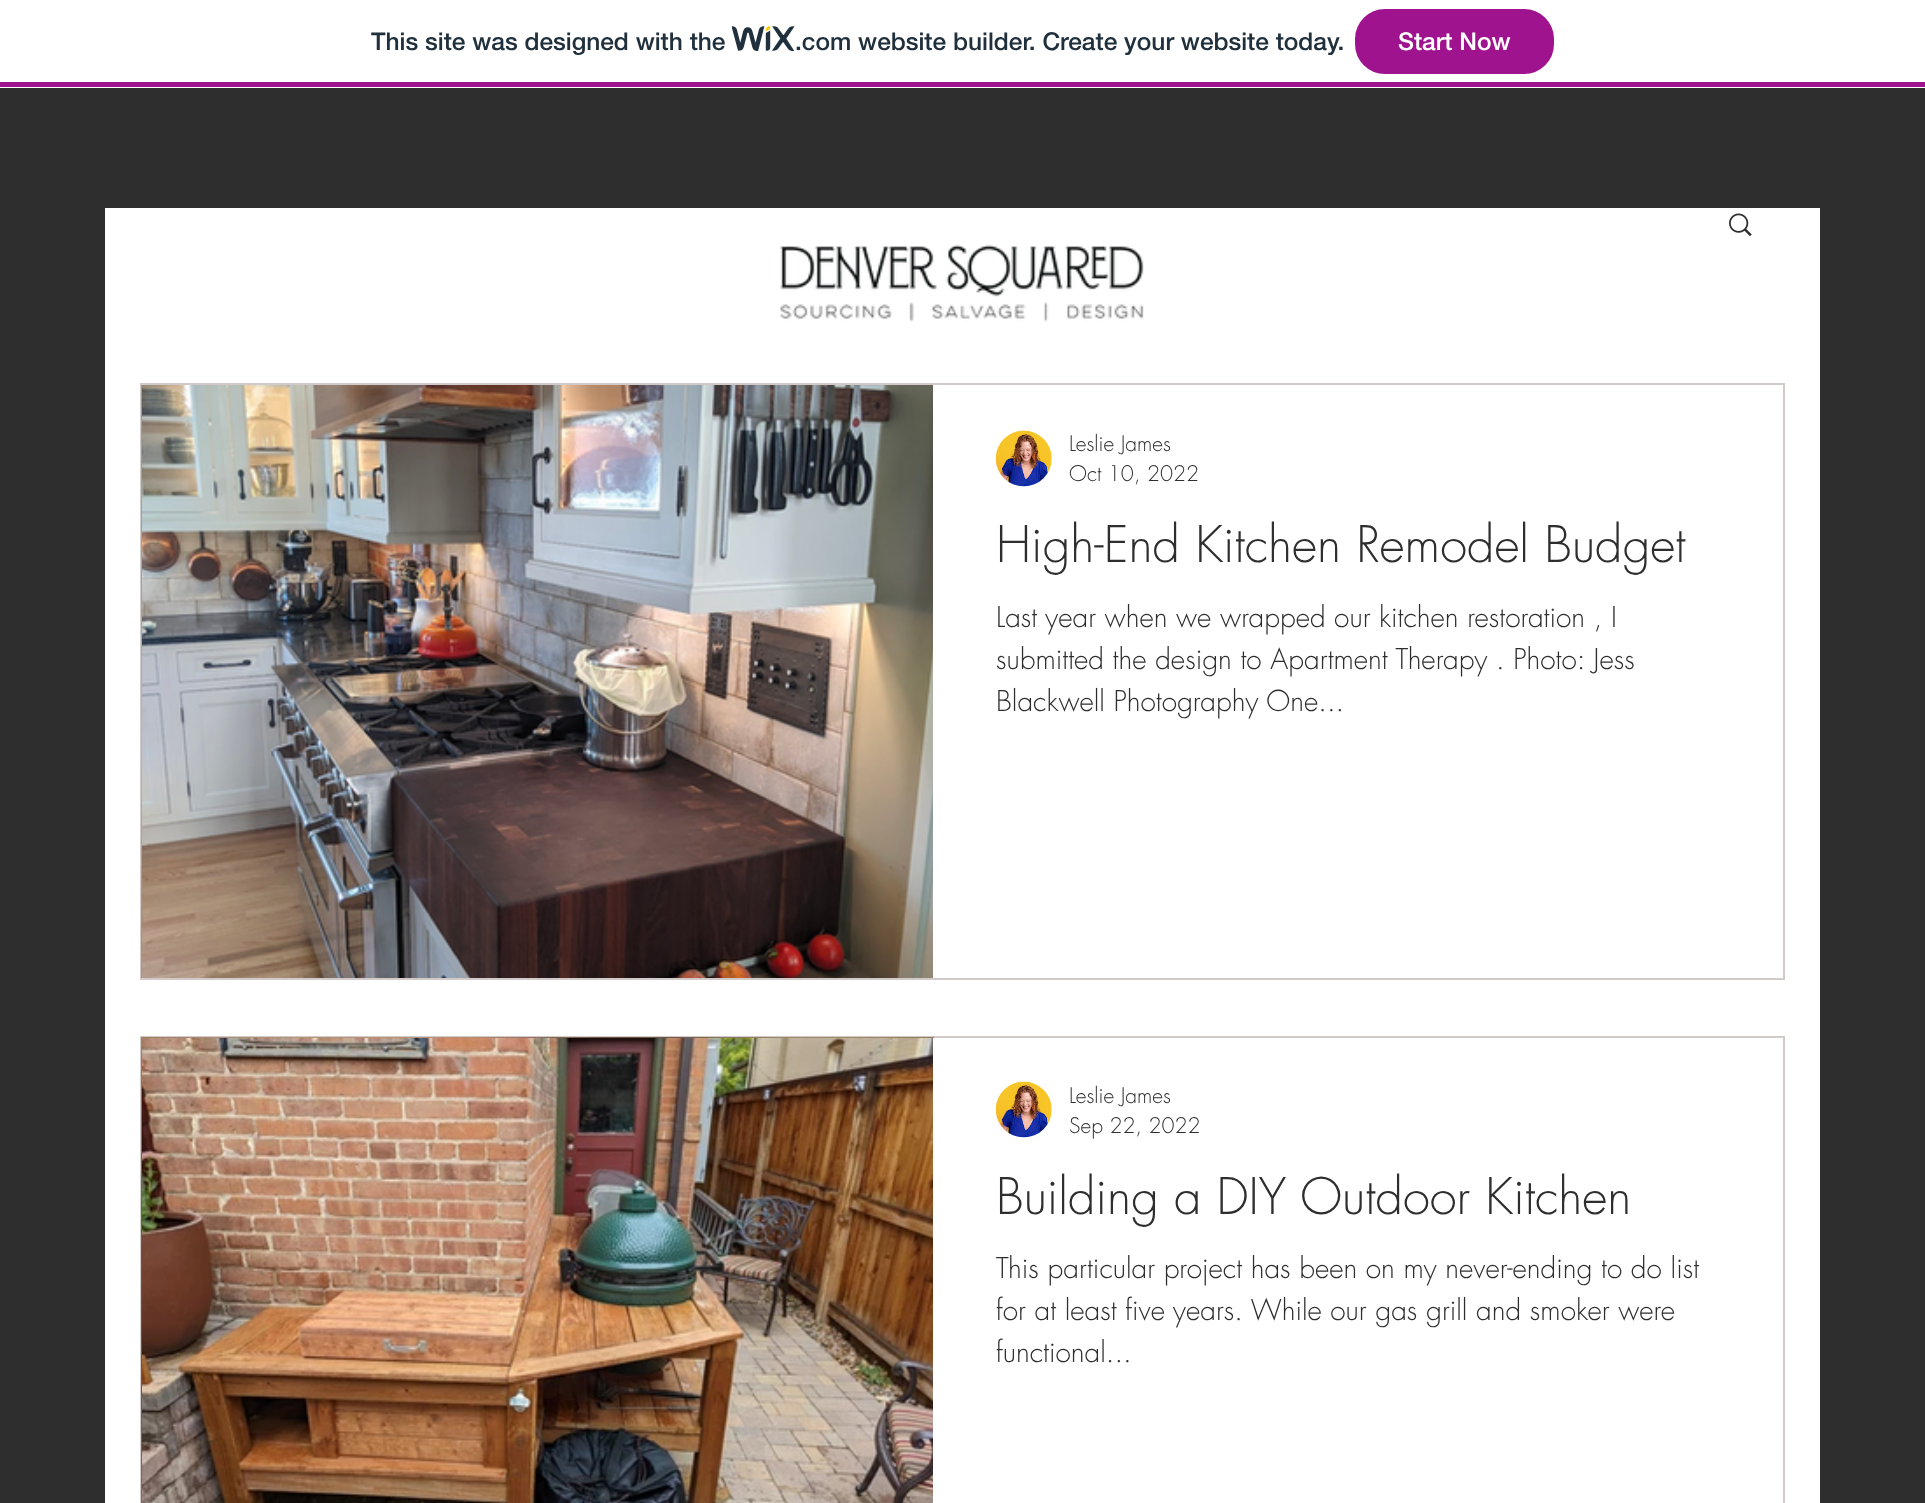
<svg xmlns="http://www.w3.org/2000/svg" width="1925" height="1503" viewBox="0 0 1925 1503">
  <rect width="100%" height="100%" fill="#ffffff"/>
  <rect x="0" y="82" width="1925" height="5" fill="#a0138e"/>
  <text x="371" y="50" font-family="'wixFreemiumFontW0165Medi'" font-size="24.5" font-weight="500" fill="#20303c">This site was designed with the</text>
  <image x="732" y="26" width="63" height="26" href="img1.png"/>
  <text x="795" y="50" font-family="'wixFreemiumFontW0165Medi'" font-size="24.5" font-weight="500" fill="#20303c">.com website builder. Create your website today.</text>
  <rect x="1356" y="10" width="197" height="63" rx="29" fill="#a0138e" stroke="#a0138e" stroke-width="2"/>
  <text x="1398" y="50" font-family="'wixFreemiumFontW0165Medi'" font-size="24.5" font-weight="500" fill="#ffffff">Start Now</text>
  <rect x="0" y="88" width="1925" height="1415" fill="#2f2e2e"/>
  <rect x="105" y="208" width="1715" height="1295" fill="#ffffff"/>
  <image x="780" y="244" width="364" height="78" href="img2.png"/>
  <image x="1729" y="213" width="23" height="23" href="img3.png"/>
  <rect x="141" y="384" width="1643" height="595" fill="none" stroke="#d1cac9" stroke-width="2"/>
  <image x="141" y="385" width="1" height="593" href="img4.png"/>
  <image x="142" y="385" width="791" height="593" href="img5.png"/>
  <image x="995" y="430" width="57" height="57" href="img6.png"/>
  <text x="1069" y="451" font-family="futura" font-size="21" font-weight="300" fill="#2f2e2e">Leslie James</text>
  <text x="1069" y="481" font-family="futura" font-size="21" font-weight="300" fill="#2f2e2e">Oct 10, 2022</text>
  <text x="996" y="562" font-family="futura" font-size="49" font-weight="300" fill="#2f2e2e">High-End Kitchen Remodel Budget</text>
  <text x="996" y="627" font-family="futura" font-size="28" font-weight="300" fill="#2f2e2e">Last year when we wrapped our kitchen restoration , I</text>
  <text x="996" y="669" font-family="futura" font-size="28" font-weight="300" fill="#2f2e2e">submitted the design to Apartment Therapy . Photo: Jess</text>
  <text x="996" y="711" font-family="futura" font-size="28" font-weight="300" fill="#2f2e2e">Blackwell Photography One...</text>
  <rect x="141" y="1037" width="1643" height="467" fill="none" stroke="#d1cac9" stroke-width="2"/>
  <image x="141" y="1037" width="793" height="466" href="img7.png"/>
  <image x="142" y="1038" width="791" height="465" href="img8.png"/>
  <rect x="933" y="1038" width="1" height="465" fill="#ffffff"/>
  <image x="995" y="1081" width="57" height="57" href="img6.png"/>
  <text x="1069" y="1103" font-family="futura" font-size="21" font-weight="300" fill="#2f2e2e">Leslie James</text>
  <text x="1069" y="1133" font-family="futura" font-size="21" font-weight="300" fill="#2f2e2e">Sep 22, 2022</text>
  <text x="996" y="1214" font-family="futura" font-size="49" font-weight="300" fill="#2f2e2e">Building a DIY Outdoor Kitchen</text>
  <text x="996" y="1278" font-family="futura" font-size="28" font-weight="300" fill="#2f2e2e">This particular project has been on my never-ending to do list</text>
  <text x="996" y="1320" font-family="futura" font-size="28" font-weight="300" fill="#2f2e2e">for at least five years. While our gas grill and smoker were</text>
  <text x="996" y="1362" font-family="futura" font-size="28" font-weight="300" fill="#2f2e2e">functional...</text>
</svg>
